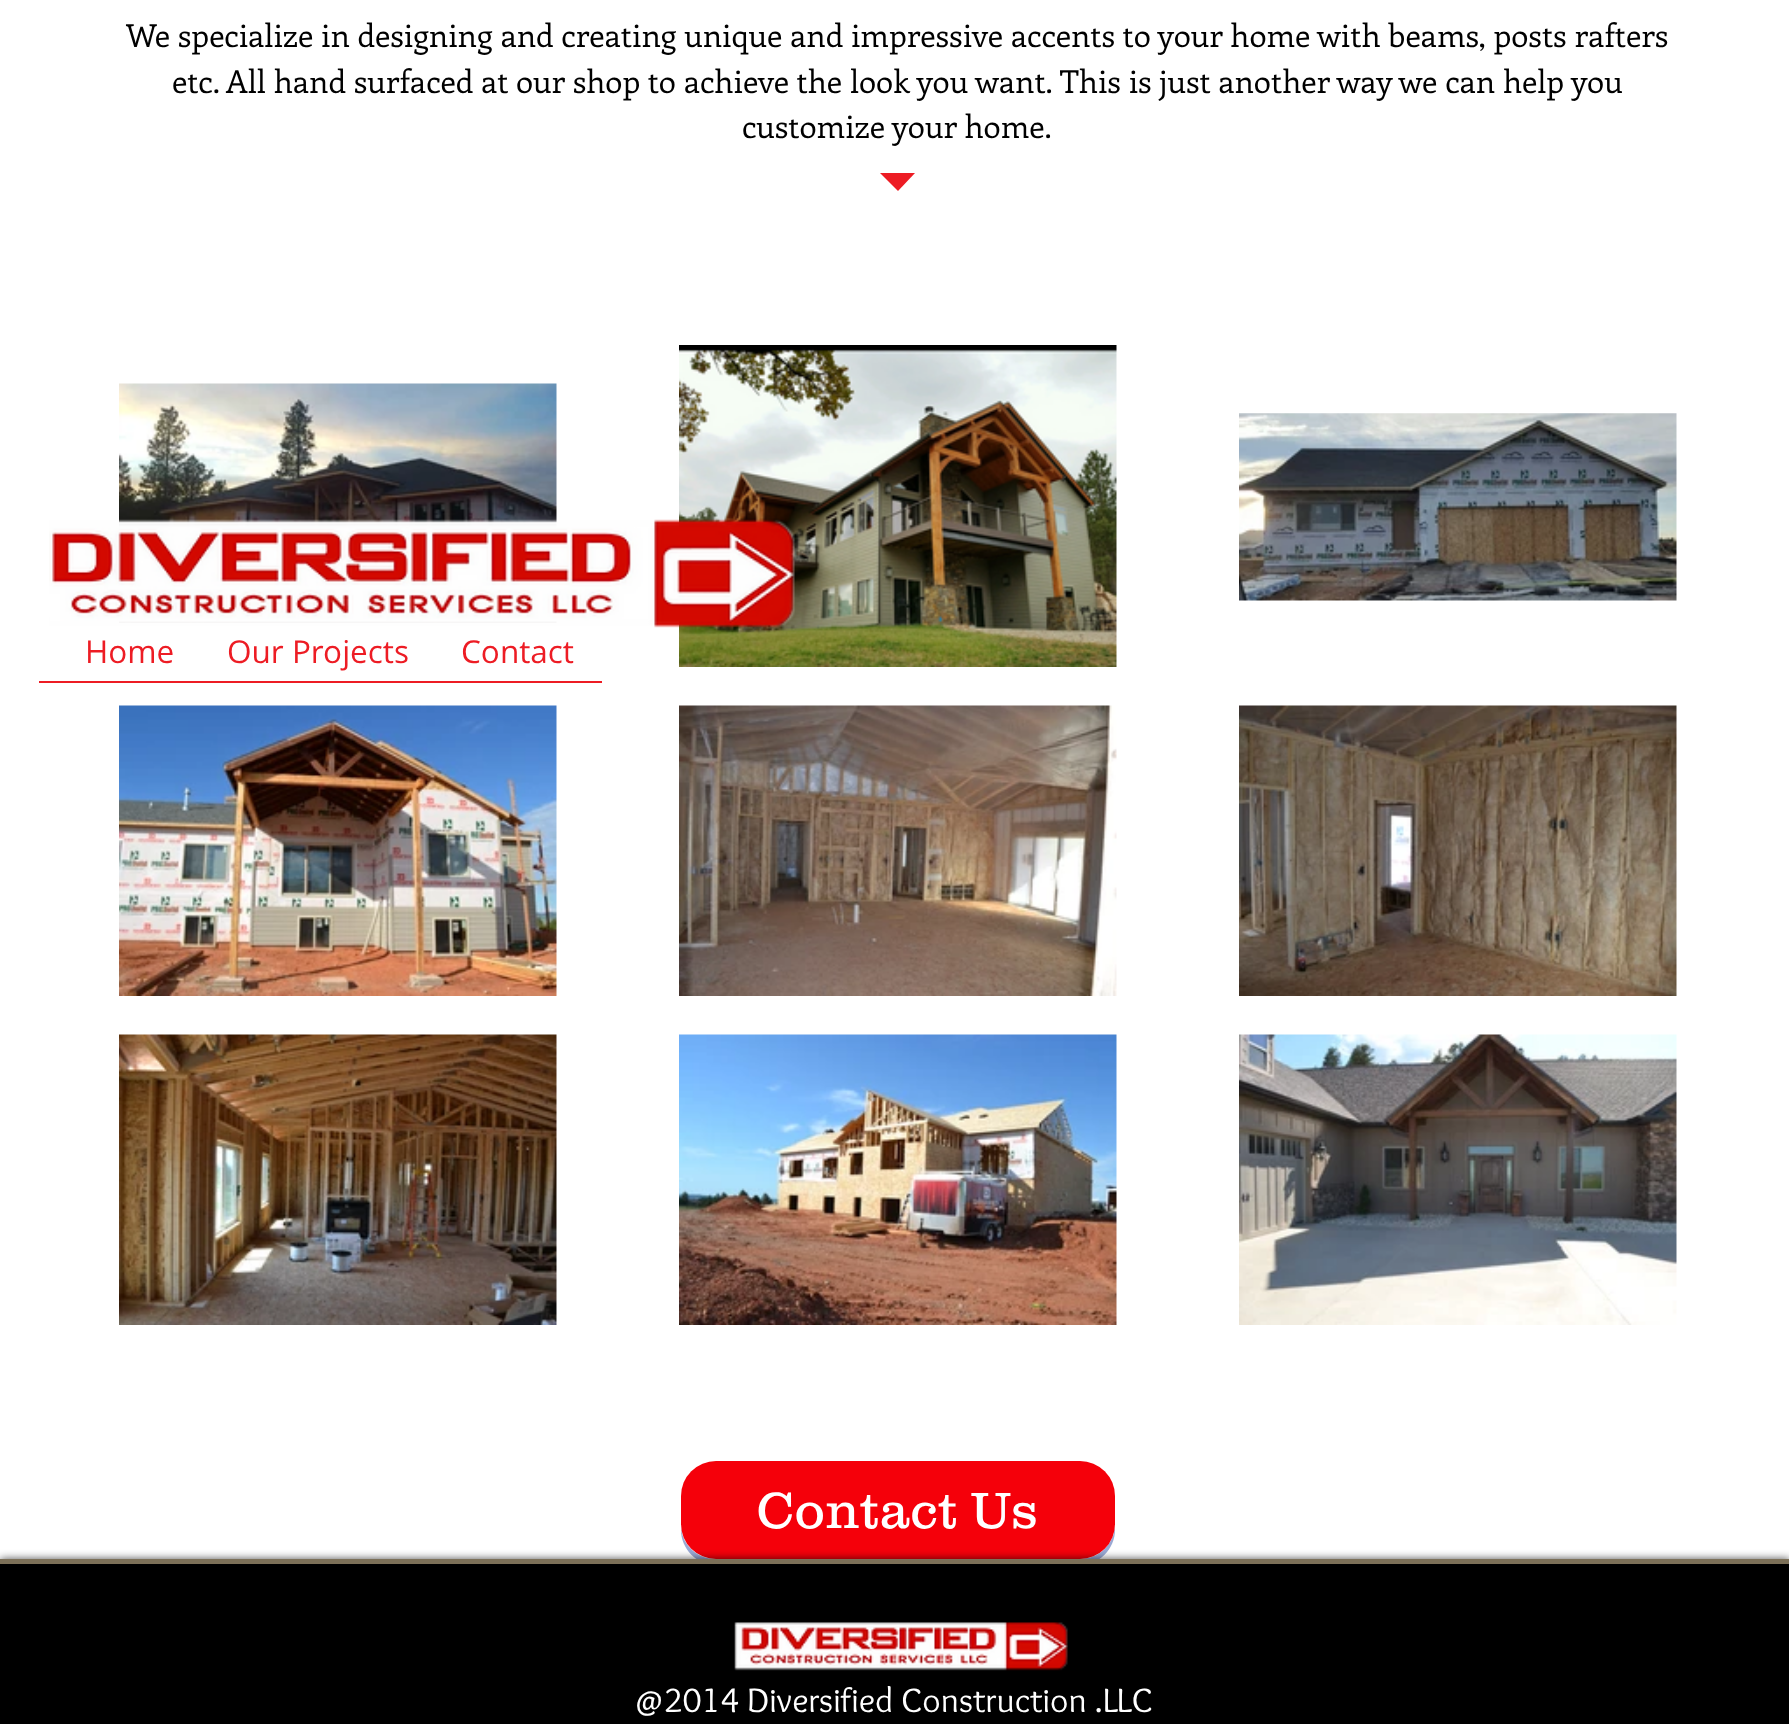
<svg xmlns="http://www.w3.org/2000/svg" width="1789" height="1724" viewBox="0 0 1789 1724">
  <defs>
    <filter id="blur1" x="-50%" y="-200%" width="200%" height="500%"><feGaussianBlur stdDeviation="4.5"/></filter>
  </defs>
  <rect width="100%" height="100%" fill="#ffffff"/>
  <text x="126" y="47" font-family="Enriqueta" font-size="31.5" fill="#000000">We specialize in designing and creating unique and impressive accents to your home with beams, posts rafters</text>
  <text x="172" y="93" font-family="Enriqueta" font-size="31.5" fill="#000000">etc. All hand surfaced at our shop to achieve the look you want. This is just another way we can help you</text>
  <text x="742" y="138" font-family="Enriqueta" font-size="31.5" fill="#000000">customize your home.</text>
  <path d="M880 173H915L898 191Z" fill="#ed1c24"/>
  <image x="119" y="383" width="438" height="240" href="img1.png"/>
  <image x="679" y="345" width="438" height="322" href="img2.png"/>
  <image x="1239" y="413" width="438" height="188" href="img3.png"/>
  <image x="119" y="705" width="438" height="291" href="img4.png"/>
  <image x="679" y="705" width="438" height="291" href="img5.png"/>
  <image x="1239" y="705" width="438" height="291" href="img6.png"/>
  <image x="119" y="1034" width="438" height="291" href="img7.png"/>
  <image x="679" y="1034" width="438" height="291" href="img8.png"/>
  <image x="1239" y="1034" width="438" height="291" href="img9.png"/>
  <path d="M681 1528V1530C681 1549 697 1565 716 1565H1080C1099 1565 1115 1549 1115 1530V1498V1524C1115 1544 1099 1559 1080 1559H716C698 1559 683 1546 681 1528Z" fill="#9aa9d4"/>
  <rect x="681" y="1461" width="434" height="98" rx="35" fill="#f5000a"/>
  <text x="756" y="1528" font-family="'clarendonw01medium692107'" font-size="52.5" font-weight="300" fill="#ffffff">Contact Us</text>
  <image x="49" y="519" width="746" height="109" href="img10.png"/>
  <text x="85" y="663" font-family="Open Sans" font-size="31.5" fill="#ed1c24">Home</text>
  <text x="227" y="663" font-family="Open Sans" font-size="31.5" fill="#ed1c24">Our Projects</text>
  <text x="461" y="663" font-family="Open Sans" font-size="31.5" fill="#ed1c24">Contact</text>
  <rect x="39" y="681" width="563" height="2" fill="#ed1c24"/>
  <rect x="0" y="1559" width="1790" height="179" fill="#000000" fill-opacity="0.7" filter="url(#blur1)"/>
  <rect x="0" y="1564" width="1789" height="160" fill="#000000"/>
  <rect x="0" y="1559" width="1789" height="5" fill="#7c7058"/>
  <image x="734" y="1622" width="334" height="49" href="img11.png"/>
  <text x="634" y="1712" font-family="Overlock" font-size="35" fill="#ffffff">@2014 Diversified Construction .LLC</text>
</svg>
